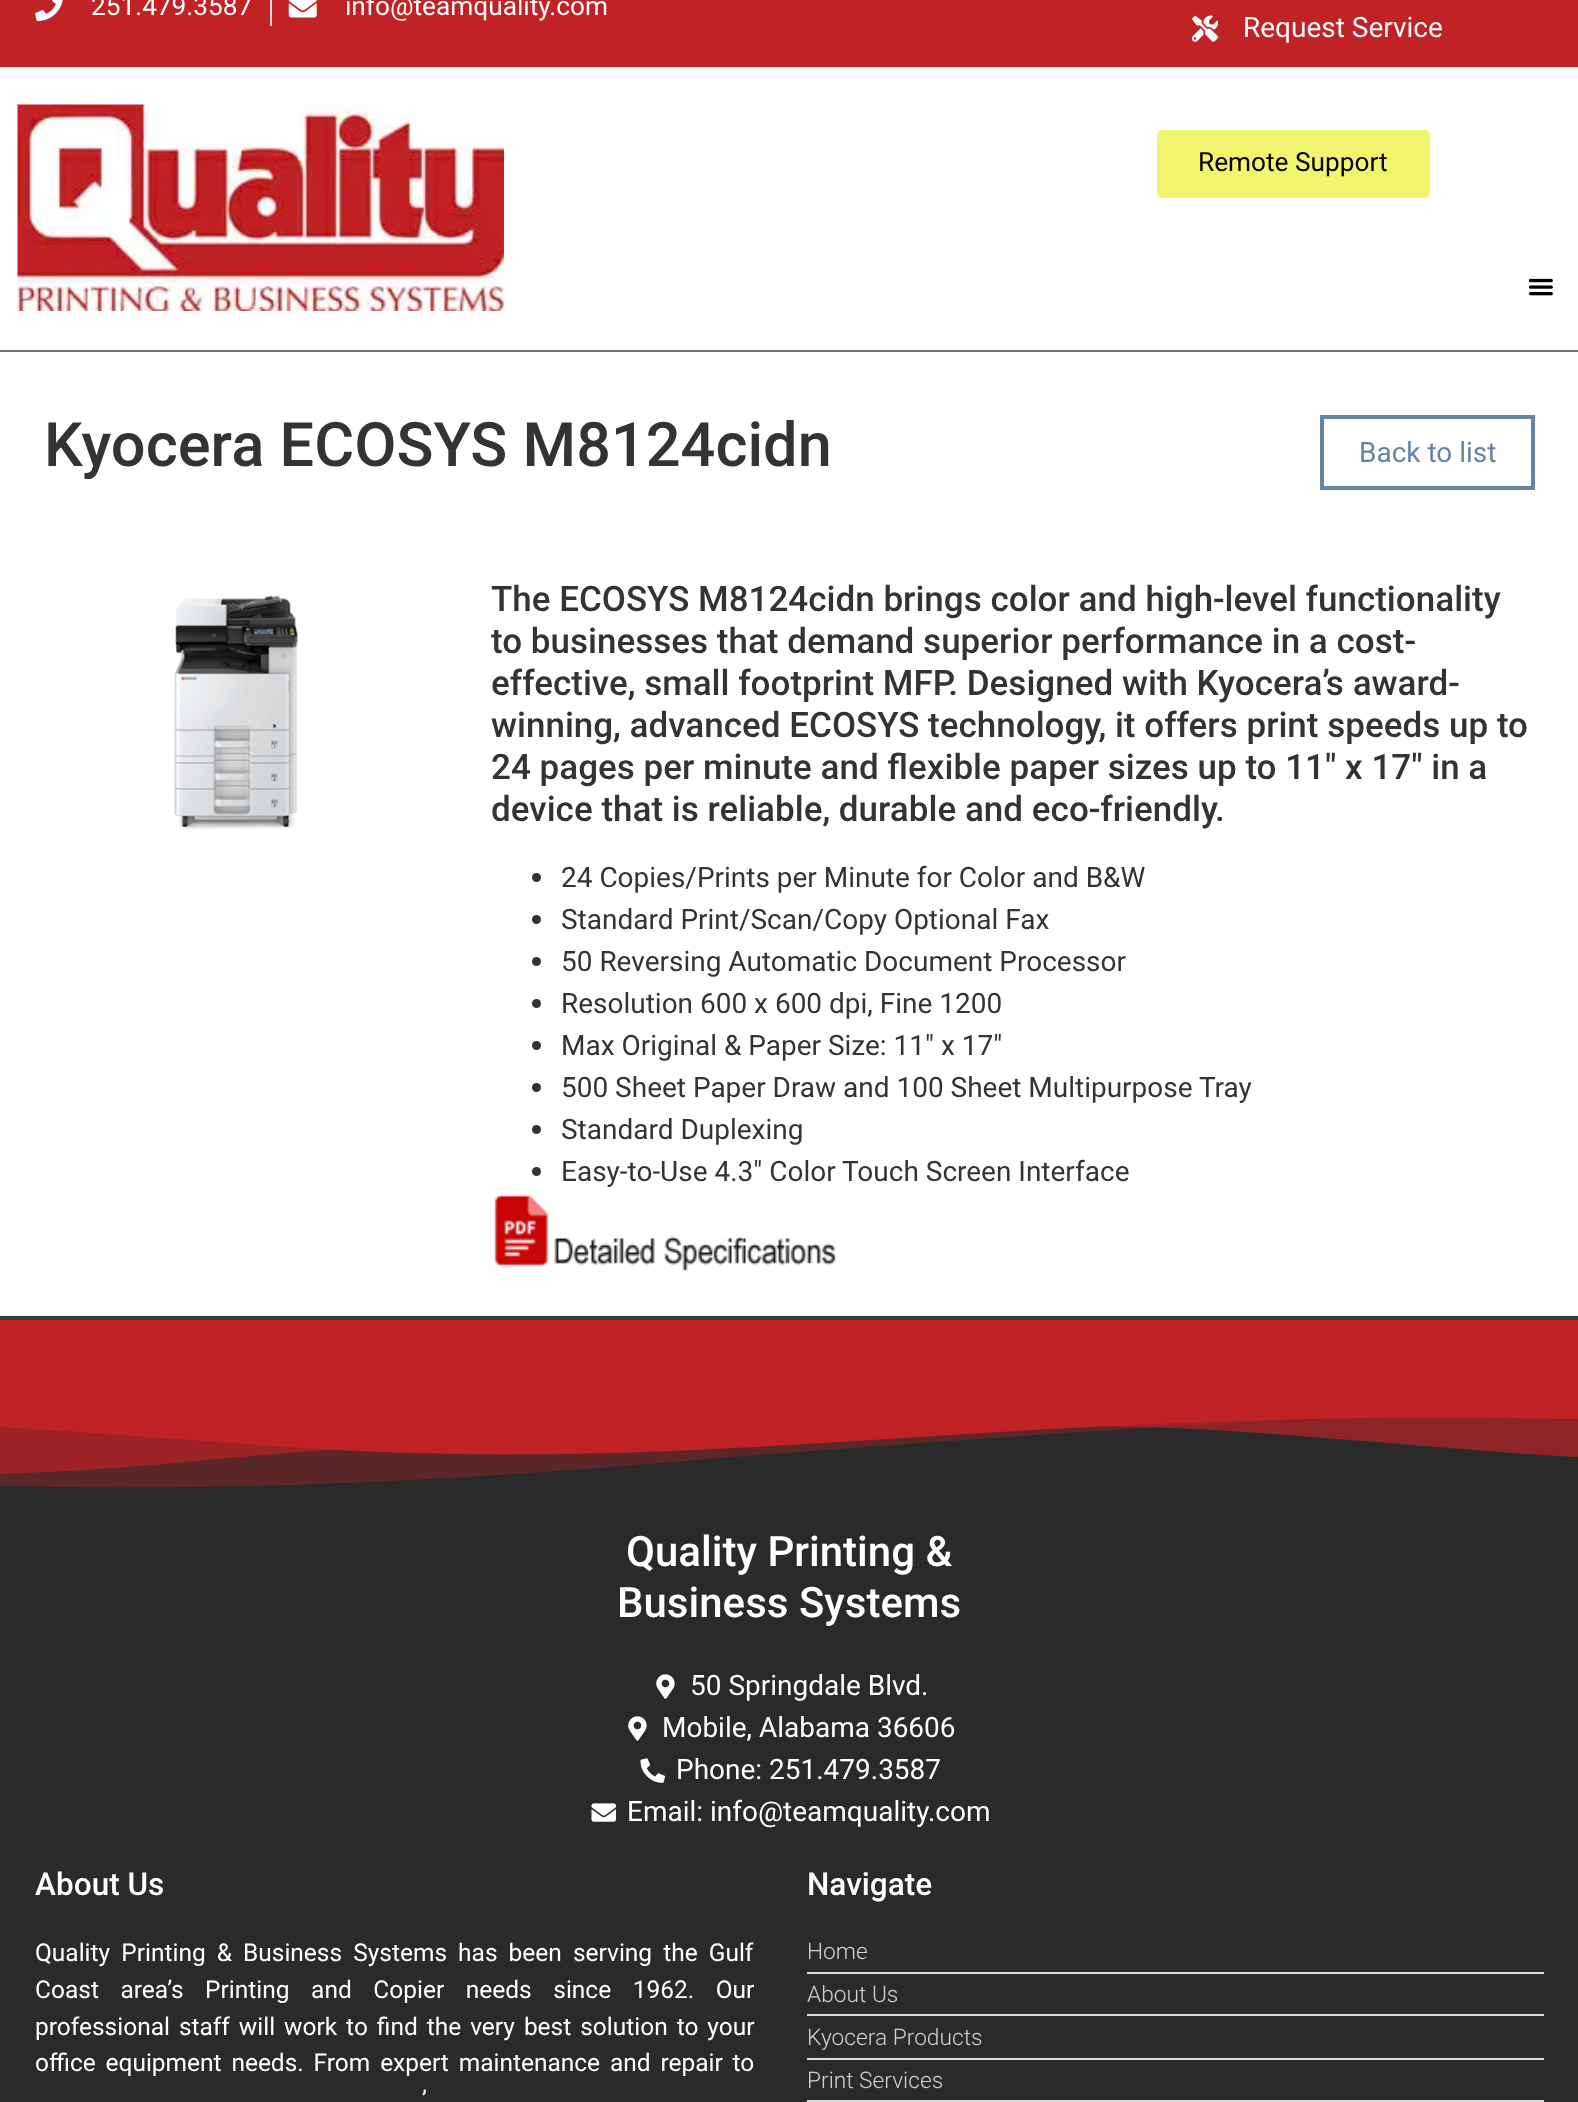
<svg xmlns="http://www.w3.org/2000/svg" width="1578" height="2102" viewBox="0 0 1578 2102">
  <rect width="100%" height="100%" fill="#ffffff"/>
  <rect x="0" y="0" width="1578" height="67" fill="#c12226"/>
  <image x="35" y="0" width="28" height="21" href="img1.png"/>
  <text x="91" y="15" font-family="Roboto" font-size="26.25" fill="#ffffff">251.479.3587</text>
  <rect x="270" y="0" width="2" height="26" fill="#dddddd"/>
  <image x="288" y="0" width="29" height="18" href="img2.png"/>
  <text x="345" y="15" font-family="Roboto" font-size="26.25" fill="#ffffff">info@teamquality.com</text>
  <image x="1191" y="15" width="27" height="27" href="img3.png"/>
  <text x="1243" y="37" font-family="Roboto" font-size="28" fill="#ffffff">Request Service</text>
  <rect x="0" y="350" width="1578" height="2" fill="#757575"/>
  <image x="17" y="104" width="487" height="207" href="img4.png"/>
  <rect x="1157" y="130" width="273" height="68" rx="5" fill="#f3f46e"/>
  <text x="1198" y="171" font-family="Roboto" font-size="26.25" fill="#050000">Remote Support</text>
  <image x="1528" y="278" width="25" height="18" href="img5.png"/>
  <text x="44" y="466" font-family="Roboto" font-size="61.25" font-weight="500" fill="#333333">Kyocera ECOSYS M8124cidn</text>
  <rect x="1322" y="417" width="211" height="71" fill="none" stroke="#6483a6" stroke-width="4"/>
  <text x="1359" y="462" font-family="Roboto" font-size="28" fill="#6483a6">Back to list</text>
  <image x="174" y="595" width="125" height="235" href="img6.png"/>
  <text x="491" y="611" font-family="Roboto" font-size="35" font-weight="500" fill="#333333">The ECOSYS M8124cidn brings color and high-level functionality</text>
  <text x="491" y="653" font-family="Roboto" font-size="35" font-weight="500" fill="#333333">to businesses that demand superior performance in a cost-</text>
  <text x="491" y="695" font-family="Roboto" font-size="35" font-weight="500" fill="#333333">effective, small footprint MFP. Designed with Kyocera’s award-</text>
  <text x="491" y="737" font-family="Roboto" font-size="35" font-weight="500" fill="#333333">winning, advanced ECOSYS technology, it offers print speeds up to</text>
  <text x="491" y="779" font-family="Roboto" font-size="35" font-weight="500" fill="#333333">24 pages per minute and flexible paper sizes up to 11" x 17" in a</text>
  <text x="491" y="821" font-family="Roboto" font-size="35" font-weight="500" fill="#333333">device that is reliable, durable and eco-friendly.</text>
  <circle cx="536.5" cy="877.5" r="4.5" fill="#333333"/>
  <text x="561" y="887" font-family="Roboto" font-size="28" fill="#333333">24 Copies/Prints per Minute for Color and B&amp;W</text>
  <circle cx="536.5" cy="919.5" r="4.5" fill="#333333"/>
  <text x="561" y="929" font-family="Roboto" font-size="28" fill="#333333">Standard Print/Scan/Copy Optional Fax</text>
  <circle cx="536.5" cy="961.5" r="4.5" fill="#333333"/>
  <text x="561" y="971" font-family="Roboto" font-size="28" fill="#333333">50 Reversing Automatic Document Processor</text>
  <circle cx="536.5" cy="1003.5" r="4.5" fill="#333333"/>
  <text x="561" y="1013" font-family="Roboto" font-size="28" fill="#333333">Resolution 600 x 600 dpi, Fine 1200</text>
  <circle cx="536.5" cy="1045.5" r="4.5" fill="#333333"/>
  <text x="561" y="1055" font-family="Roboto" font-size="28" fill="#333333">Max Original &amp; Paper Size: 11" x 17"</text>
  <circle cx="536.5" cy="1087.5" r="4.5" fill="#333333"/>
  <text x="561" y="1097" font-family="Roboto" font-size="28" fill="#333333">500 Sheet Paper Draw and 100 Sheet Multipurpose Tray</text>
  <circle cx="536.5" cy="1129.5" r="4.5" fill="#333333"/>
  <text x="561" y="1139" font-family="Roboto" font-size="28" fill="#333333">Standard Duplexing</text>
  <circle cx="536.5" cy="1171.5" r="4.5" fill="#333333"/>
  <text x="561" y="1181" font-family="Roboto" font-size="28" fill="#333333">Easy-to-Use 4.3" Color Touch Screen Interface</text>
  <image x="493" y="1194" width="343" height="77" href="img7.png"/>
  <rect x="0" y="1320" width="1578" height="89" fill="#c12226"/>
  <rect x="0" y="1316" width="1578" height="4" fill="#3c3c3c"/>
  <rect x="0" y="1417" width="1578" height="685" fill="#2a2a2a"/>
  <image x="0" y="1409" width="1578" height="79" href="img8.png"/>
  <text x="626" y="1566" font-family="Roboto" font-size="42" font-weight="500" fill="#ffffff">Quality Printing &amp;</text>
  <text x="617" y="1617" font-family="Roboto" font-size="42" font-weight="500" fill="#ffffff">Business Systems</text>
  <image x="656" y="1674" width="19" height="25" href="img9.png"/>
  <text x="690" y="1695" font-family="Roboto" font-size="28" fill="#ffffff">50 Springdale Blvd.</text>
  <image x="628" y="1716" width="19" height="25" href="img9.png"/>
  <text x="662" y="1737" font-family="Roboto" font-size="28" fill="#ffffff">Mobile, Alabama 36606</text>
  <image x="640" y="1758" width="25" height="25" href="img10.png"/>
  <text x="676" y="1779" font-family="Roboto" font-size="28" fill="#ffffff">Phone: 251.479.3587</text>
  <image x="591" y="1803" width="25" height="19" href="img11.png"/>
  <text x="627" y="1821" font-family="Roboto" font-size="28" fill="#ffffff">Email: info@teamquality.com</text>
  <text x="35" y="1895" font-family="Roboto" font-size="31.5" font-weight="500" fill="#ffffff">About Us</text>
  <text x="35" y="1961" word-spacing="5" font-family="Roboto" font-size="24.5" fill="#ffffff">Quality Printing &amp; Business Systems has been serving the Gulf</text>
  <text x="35" y="1998" word-spacing="15.5" font-family="Roboto" font-size="24.5" fill="#ffffff">Coast area’s Printing and Copier needs since 1962. Our</text>
  <text x="35" y="2035" word-spacing="2.9" font-family="Roboto" font-size="24.5" fill="#ffffff">professional staff will work to find the very best solution to your</text>
  <text x="35" y="2071" word-spacing="3.75" font-family="Roboto" font-size="24.5" fill="#ffffff">office equipment needs. From expert maintenance and repair to</text>
  <text x="422" y="2108" font-family="Roboto" font-size="24.5" fill="#ffffff">’</text>
  <text x="807" y="1895" font-family="Roboto" font-size="31.5" font-weight="500" fill="#ffffff">Navigate</text>
  <text x="807" y="1959" font-family="Roboto" font-size="22.75" font-weight="300" fill="#d2d2d2">Home</text>
  <rect x="807" y="1972" width="737" height="2" fill="#dddddd"/>
  <text x="807" y="2002" font-family="Roboto" font-size="22.75" font-weight="300" fill="#d2d2d2">About Us</text>
  <rect x="807" y="2014" width="737" height="2" fill="#dddddd"/>
  <text x="807" y="2045" font-family="Roboto" font-size="22.75" font-weight="300" fill="#d2d2d2">Kyocera Products</text>
  <rect x="807" y="2058" width="737" height="2" fill="#dddddd"/>
  <text x="807" y="2088" font-family="Roboto" font-size="22.75" font-weight="300" fill="#d2d2d2">Print Services</text>
  <rect x="807" y="2100" width="737" height="2" fill="#dddddd"/>
</svg>
